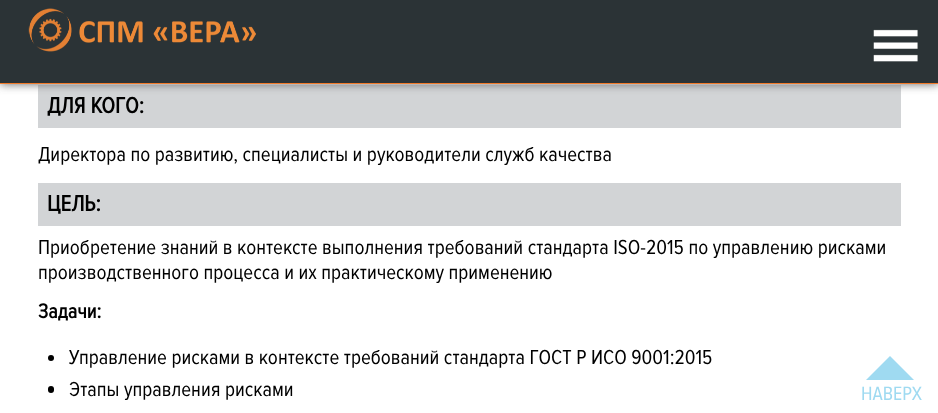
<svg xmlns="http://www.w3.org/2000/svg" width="938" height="413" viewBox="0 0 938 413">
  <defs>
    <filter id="blur1" x="-50%" y="-200%" width="200%" height="500%"><feGaussianBlur stdDeviation="5"/></filter>
  </defs>
  <rect width="100%" height="100%" fill="#ffffff"/>
  <rect x="38" y="85" width="863" height="43" fill="#d2d4d6"/>
  <rect x="0" y="0" width="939" height="84" fill="#626262" filter="url(#blur1)"/>
  <rect x="0" y="0" width="938" height="83" fill="#2b3336"/>
  <rect x="0" y="83" width="938" height="1" fill="#f17b2b"/>
  <image x="28" y="8" width="228" height="44" href="img1.png"/>
  <image x="873" y="29" width="45" height="33" href="img2.png"/>
  <text x="47" y="113" font-family="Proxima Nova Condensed" font-size="23" font-weight="bold" fill="#000000">ДЛЯ КОГО:</text>
  <text x="38" y="161" font-family="Proxima Nova Condensed" font-size="21" fill="#000000">Директора по развитию, специалисты и руководители служб качества</text>
  <rect x="38" y="183" width="863" height="43" fill="#d2d4d6"/>
  <text x="47" y="211" font-family="Proxima Nova Condensed" font-size="23" font-weight="bold" fill="#000000">ЦЕЛЬ:</text>
  <text x="38" y="254" font-family="Proxima Nova Condensed" font-size="21" fill="#000000">Приобретение знаний в контексте выполнения требований стандарта ISO-2015 по управлению рисками</text>
  <text x="38" y="279" font-family="Proxima Nova Condensed" font-size="21" fill="#000000">производственного процесса и их практическому применению</text>
  <text x="38" y="318" font-family="Proxima Nova Condensed" font-size="21" font-weight="bold" fill="#000000">Задачи:</text>
  <circle cx="51" cy="358" r="3" fill="#000000"/>
  <text x="69" y="364" font-family="Proxima Nova Condensed" font-size="21" fill="#000000">Управление рисками в контексте требований стандарта ГОСТ Р ИСО 9001:2015</text>
  <rect x="48" y="386" width="6" height="7" rx="3" fill="#000000"/>
  <text x="69" y="396" font-family="Proxima Nova Condensed" font-size="21" fill="#000000">Этапы управления рисками</text>
  <path d="M914 380H866L890 356Z" fill="#9fdaf1"/>
  <text x="861" y="400" font-family="Proxima Nova Condensed" font-size="20" fill="#9fdaf1">НАВЕРХ</text>
</svg>
